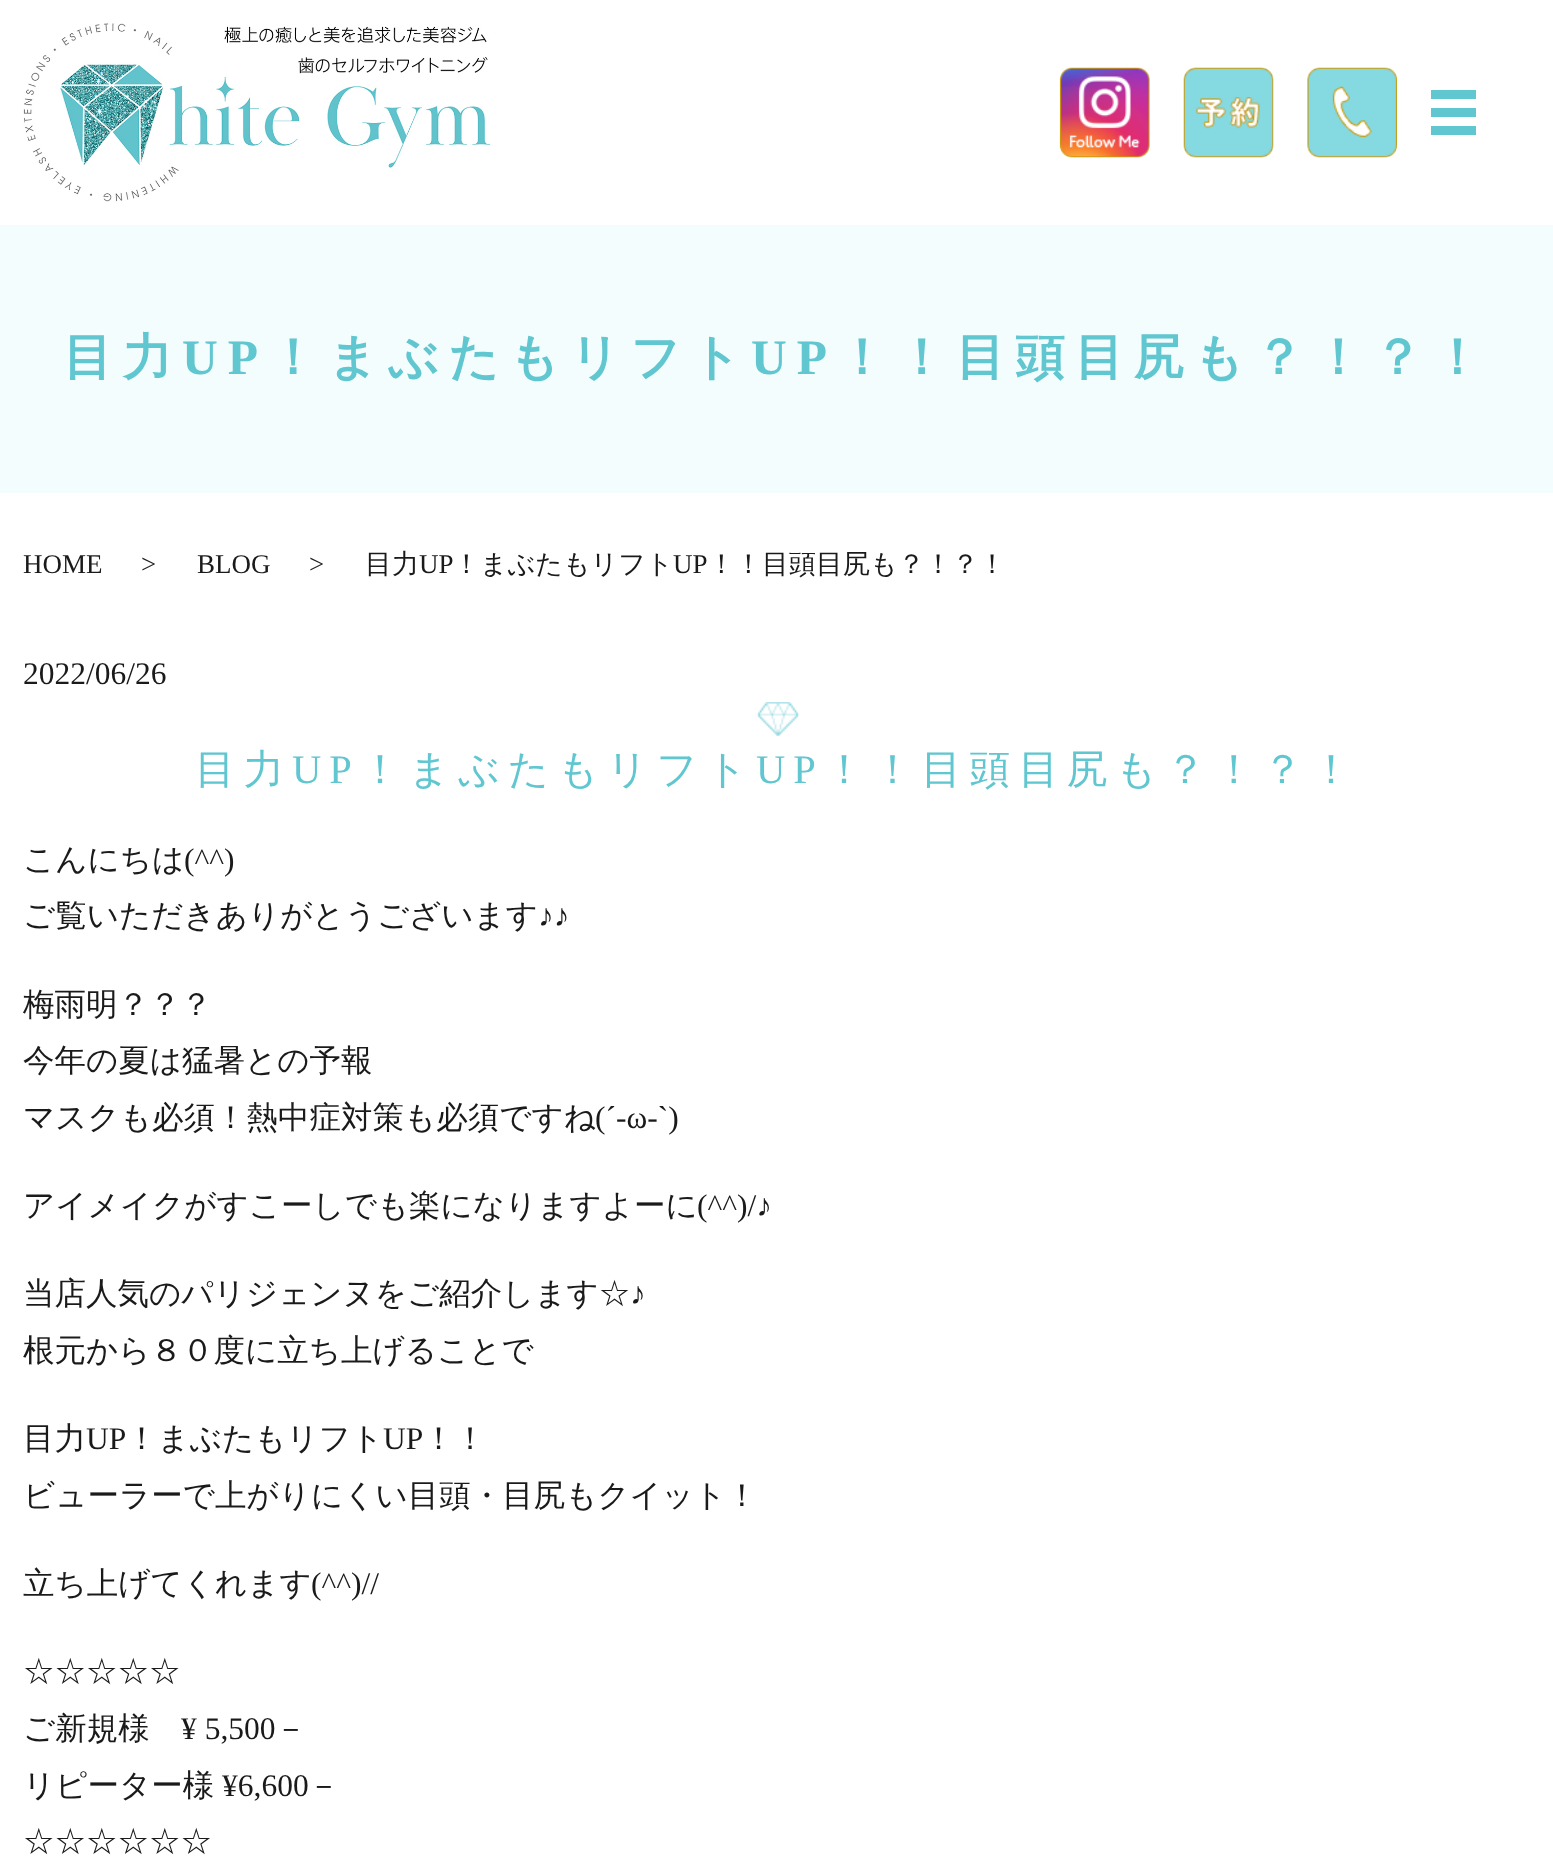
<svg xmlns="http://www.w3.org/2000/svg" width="1553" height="1860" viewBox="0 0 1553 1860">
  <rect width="100%" height="100%" fill="#ffffff"/>
  <image x="23" y="23" width="468" height="179" href="img1.png"/>
  <image x="1059" y="67" width="91" height="91" href="img2.png"/>
  <image x="1183" y="67" width="91" height="91" href="img3.png"/>
  <image x="1307" y="67" width="91" height="91" href="img4.png"/>
  <rect x="1431" y="90" width="45" height="9" fill="#60c6d0"/>
  <rect x="1431" y="108" width="45" height="9" fill="#60c6d0"/>
  <rect x="1431" y="126" width="45" height="9" fill="#60c6d0"/>
  <rect x="0" y="225" width="1553" height="268" fill="#f4fdfe"/>
  <text x="63" y="374" font-family="WenQuanYi Zen Hei" font-size="49.5" font-weight="bold" letter-spacing="9.9" fill="#60c6d0">目力</text>
  <text x="182" y="374" font-family="Liberation Serif" font-size="49.5" font-weight="bold" letter-spacing="9.9" fill="#60c6d0">UP</text>
  <text x="268" y="374" font-family="WenQuanYi Zen Hei" font-size="49.5" font-weight="bold" letter-spacing="9.9" fill="#60c6d0">！まぶたもリフト</text>
  <text x="751" y="374" font-family="Liberation Serif" font-size="49.5" font-weight="bold" letter-spacing="9.9" fill="#60c6d0">UP</text>
  <text x="837" y="374" font-family="WenQuanYi Zen Hei" font-size="49.5" font-weight="bold" letter-spacing="9.9" fill="#60c6d0">！！目頭目尻も？！？！</text>
  <text x="23" y="573" font-family="Liberation Serif" font-size="27" fill="#1a1a1a">HOME</text>
  <text x="141" y="573" font-family="Liberation Serif" font-size="27" fill="#1a1a1a">&gt;</text>
  <text x="197" y="573" font-family="Liberation Serif" font-size="27" fill="#1a1a1a">BLOG</text>
  <text x="309" y="573" font-family="Liberation Serif" font-size="27" fill="#1a1a1a">&gt;</text>
  <text x="365" y="573" font-family="WenQuanYi Zen Hei" font-size="27" font-weight="500" fill="#1a1a1a">目力</text>
  <text x="419" y="573" font-family="Liberation Serif" font-size="27" fill="#1a1a1a">UP</text>
  <text x="453" y="573" font-family="WenQuanYi Zen Hei" font-size="27" font-weight="500" fill="#1a1a1a">！まぶたもリフト</text>
  <text x="673" y="573" font-family="Liberation Serif" font-size="27" fill="#1a1a1a">UP</text>
  <text x="708" y="573" font-family="WenQuanYi Zen Hei" font-size="27" font-weight="500" fill="#1a1a1a">！！目頭目尻も？！？！</text>
  <text x="23" y="684" font-family="Liberation Serif" font-size="31.5" fill="#1a1a1a">2022/06/26</text>
  <image x="756" y="702" width="44" height="34" href="img5.png"/>
  <text x="195" y="783" font-family="WenQuanYi Zen Hei" font-size="40.5" font-weight="500" letter-spacing="8.1" fill="#60c6d0">目力</text>
  <text x="292" y="783" font-family="Liberation Serif" font-size="40.5" letter-spacing="8.1" fill="#60c6d0">UP</text>
  <text x="360" y="783" font-family="WenQuanYi Zen Hei" font-size="40.5" font-weight="500" letter-spacing="8.1" fill="#60c6d0">！まぶたもリフト</text>
  <text x="756" y="783" font-family="Liberation Serif" font-size="40.5" letter-spacing="8.1" fill="#60c6d0">UP</text>
  <text x="824" y="783" font-family="WenQuanYi Zen Hei" font-size="40.5" font-weight="500" letter-spacing="8.1" fill="#60c6d0">！！目頭目尻も？！？！</text>
  <text x="23" y="870" font-family="WenQuanYi Zen Hei" font-size="31.5" font-weight="500" fill="#1a1a1a">こんにちは</text>
  <text x="184" y="870" font-family="Liberation Serif" font-size="31.5" fill="#1a1a1a">(^^)</text>
  <text x="23" y="926" font-family="WenQuanYi Zen Hei" font-size="31.5" font-weight="500" fill="#1a1a1a">ご覧いただきありがとうございます</text>
  <text x="538" y="926" font-family="Liberation Serif" font-size="31.5" fill="#1a1a1a">♪♪</text>
  <text x="23" y="1015" font-family="WenQuanYi Zen Hei" font-size="31.5" font-weight="500" fill="#1a1a1a">梅雨明？？？</text>
  <text x="23" y="1071" font-family="WenQuanYi Zen Hei" font-size="31.5" font-weight="500" fill="#1a1a1a">今年の夏は猛暑との予報</text>
  <text x="23" y="1128" font-family="WenQuanYi Zen Hei" font-size="31.5" font-weight="500" fill="#1a1a1a">マスクも必須！熱中症対策も必須ですね</text>
  <text x="595" y="1128" font-family="Liberation Serif" font-size="31.5" fill="#1a1a1a">(´-ω-`)</text>
  <text x="23" y="1216" font-family="WenQuanYi Zen Hei" font-size="31.5" font-weight="500" fill="#1a1a1a">アイメイクがすこーしでも楽になりますよーに</text>
  <text x="697" y="1216" font-family="Liberation Serif" font-size="31.5" fill="#1a1a1a">(^^)/♪</text>
  <text x="23" y="1304" font-family="WenQuanYi Zen Hei" font-size="31.5" font-weight="500" fill="#1a1a1a">当店人気のパリジェンヌをご紹介します☆</text>
  <text x="630" y="1304" font-family="Liberation Serif" font-size="31.5" fill="#1a1a1a">♪</text>
  <text x="23" y="1361" font-family="WenQuanYi Zen Hei" font-size="31.5" font-weight="500" fill="#1a1a1a">根元から８０度に立ち上げることで</text>
  <text x="23" y="1449" font-family="WenQuanYi Zen Hei" font-size="31.5" font-weight="500" fill="#1a1a1a">目力</text>
  <text x="86" y="1449" font-family="Liberation Serif" font-size="31.5" fill="#1a1a1a">UP</text>
  <text x="126" y="1449" font-family="WenQuanYi Zen Hei" font-size="31.5" font-weight="500" fill="#1a1a1a">！まぶたもリフト</text>
  <text x="383" y="1449" font-family="Liberation Serif" font-size="31.5" fill="#1a1a1a">UP</text>
  <text x="423" y="1449" font-family="WenQuanYi Zen Hei" font-size="31.5" font-weight="500" fill="#1a1a1a">！！</text>
  <text x="23" y="1506" font-family="WenQuanYi Zen Hei" font-size="31.5" font-weight="500" fill="#1a1a1a">ビューラーで上がりにくい目頭・目尻もクイット！</text>
  <text x="23" y="1594" font-family="WenQuanYi Zen Hei" font-size="31.5" font-weight="500" fill="#1a1a1a">立ち上げてくれます</text>
  <text x="311" y="1594" font-family="Liberation Serif" font-size="31.5" fill="#1a1a1a">(^^)//</text>
  <text x="23" y="1682" font-family="WenQuanYi Zen Hei" font-size="31.5" font-weight="500" fill="#1a1a1a">☆☆☆☆☆</text>
  <text x="23" y="1739" font-family="WenQuanYi Zen Hei" font-size="31.5" font-weight="500" fill="#1a1a1a">ご新規様</text>
  <text x="181" y="1739" font-family="Liberation Serif" font-size="31.5" fill="#1a1a1a">¥ 5,500</text>
  <text x="275" y="1739" font-family="WenQuanYi Zen Hei" font-size="31.5" font-weight="500" fill="#1a1a1a">－</text>
  <text x="23" y="1796" font-family="WenQuanYi Zen Hei" font-size="31.5" font-weight="500" fill="#1a1a1a">リピーター様</text>
  <text x="222" y="1796" font-family="Liberation Serif" font-size="31.5" fill="#1a1a1a">¥6,600</text>
  <text x="308" y="1796" font-family="WenQuanYi Zen Hei" font-size="31.5" font-weight="500" fill="#1a1a1a">－</text>
  <text x="23" y="1852" font-family="WenQuanYi Zen Hei" font-size="31.5" font-weight="500" fill="#1a1a1a">☆☆☆☆☆☆</text>
</svg>
